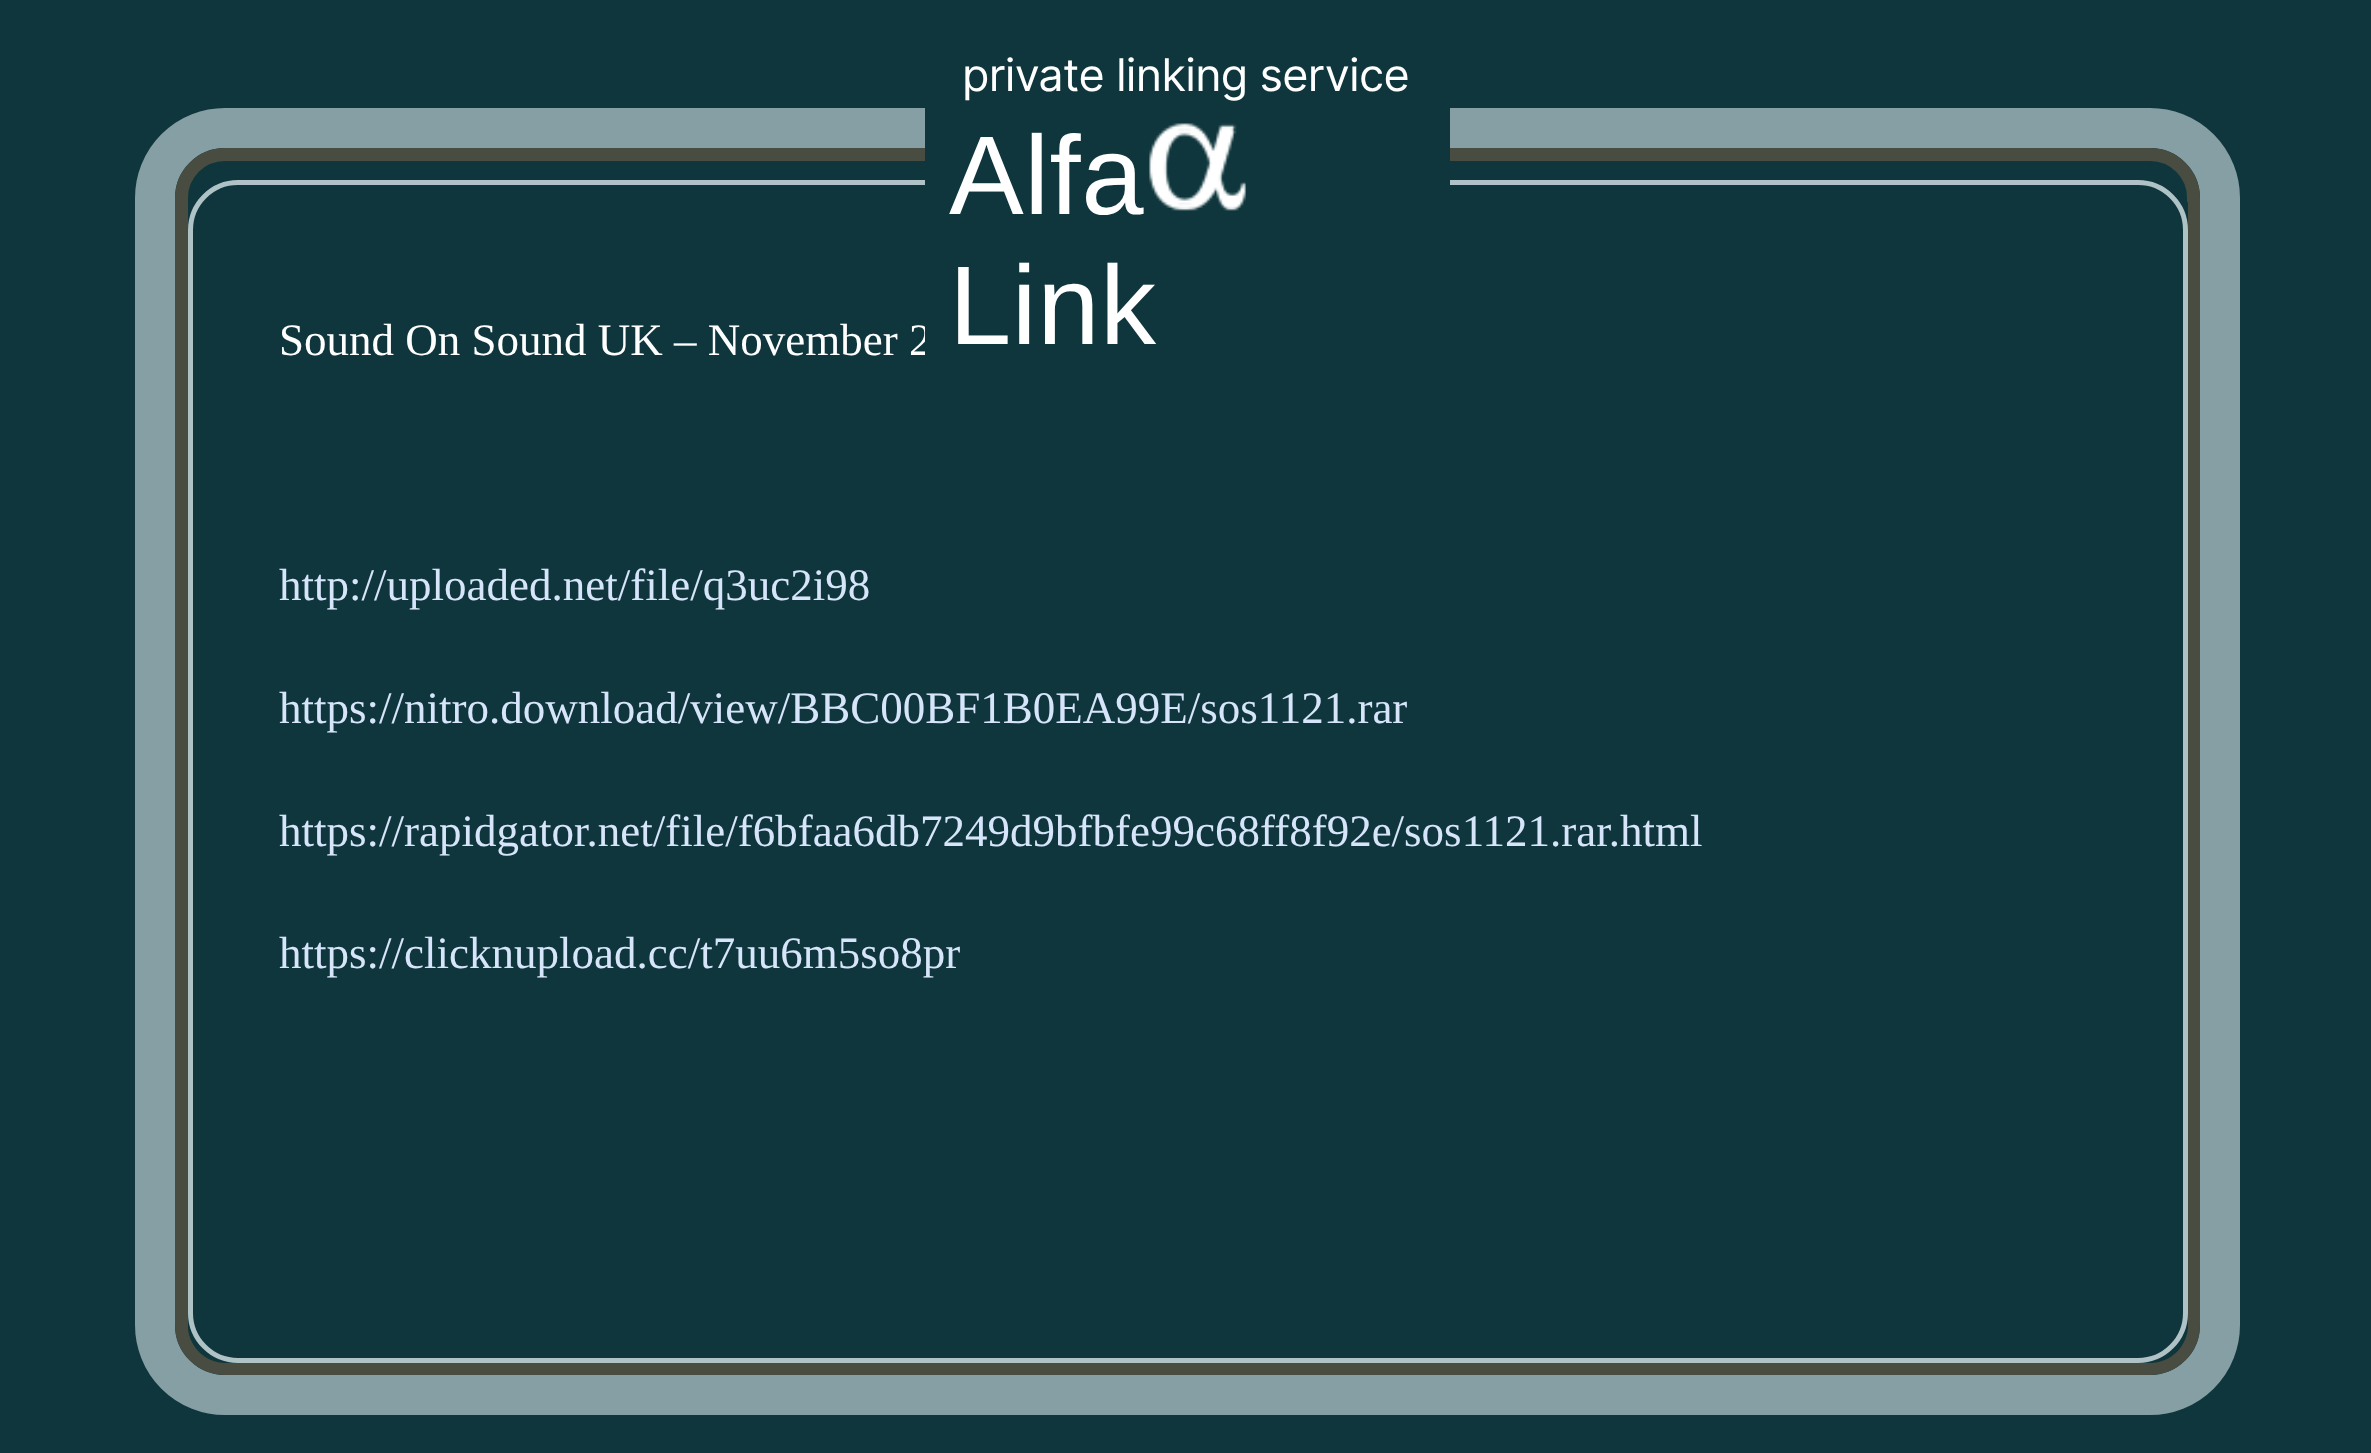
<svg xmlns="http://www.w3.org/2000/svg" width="2371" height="1453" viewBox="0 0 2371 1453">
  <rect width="100%" height="100%" fill="#0f363d"/>
  <rect x="155" y="128" width="2065" height="1267" rx="70" fill="none" stroke="#859fa4" stroke-width="40"/>
  <rect x="181.5" y="154.5" width="2012" height="1214" rx="43.5" fill="none" stroke="#484c41" stroke-width="13"/>
  <path d="M238 173C217 173 198 184 188 202V231C188 203 210 181 238 181H2137C2165 181 2187 203 2187 231V1312C2187 1340 2165 1362 2137 1362H238C210 1362 188 1340 188 1312V1325C188 1346 205 1363 226 1363H2150C2171 1363 2188 1346 2188 1325V203C2178 185 2159 173 2137 173Z" fill="#0e363c"/>
  <rect x="190.5" y="182.5" width="1995" height="1178" rx="47.5" fill="none" stroke="#afc2c5" stroke-width="5"/>
  <text x="279" y="355" font-family="Liberation Serif" font-size="45" fill="#ffffff">Sound On Sound UK – November 2</text>
  <rect x="925" y="108" width="525" height="247" fill="#0f363d"/>
  <text x="962" y="91" font-family="Inter" font-size="45" letter-spacing="-0.7" fill="#ffffff">private linking service</text>
  <text x="949" y="214" font-family="Liberation Sans" font-size="112" letter-spacing="0.5" fill="#ffffff">Alfa</text>
  <image x="1149" y="123" width="97" height="88" href="img1.png"/>
  <text x="949" y="344" font-family="Liberation Sans" font-size="112" letter-spacing="0.5" fill="#ffffff">Link</text>
  <text x="279" y="600" font-family="Liberation Serif" font-size="45" fill="#d7e5fb">http://uploaded.net/file/q3uc2i98</text>
  <text x="279" y="723" font-family="Liberation Serif" font-size="45" fill="#d7e5fb">https://nitro.download/view/BBC00BF1B0EA99E/sos1121.rar</text>
  <text x="279" y="846" font-family="Liberation Serif" font-size="45" fill="#d7e5fb">https://rapidgator.net/file/f6bfaa6db7249d9bfbfe99c68ff8f92e/sos1121.rar.html</text>
  <text x="279" y="968" font-family="Liberation Serif" font-size="45" fill="#d7e5fb">https://clicknupload.cc/t7uu6m5so8pr</text>
</svg>
